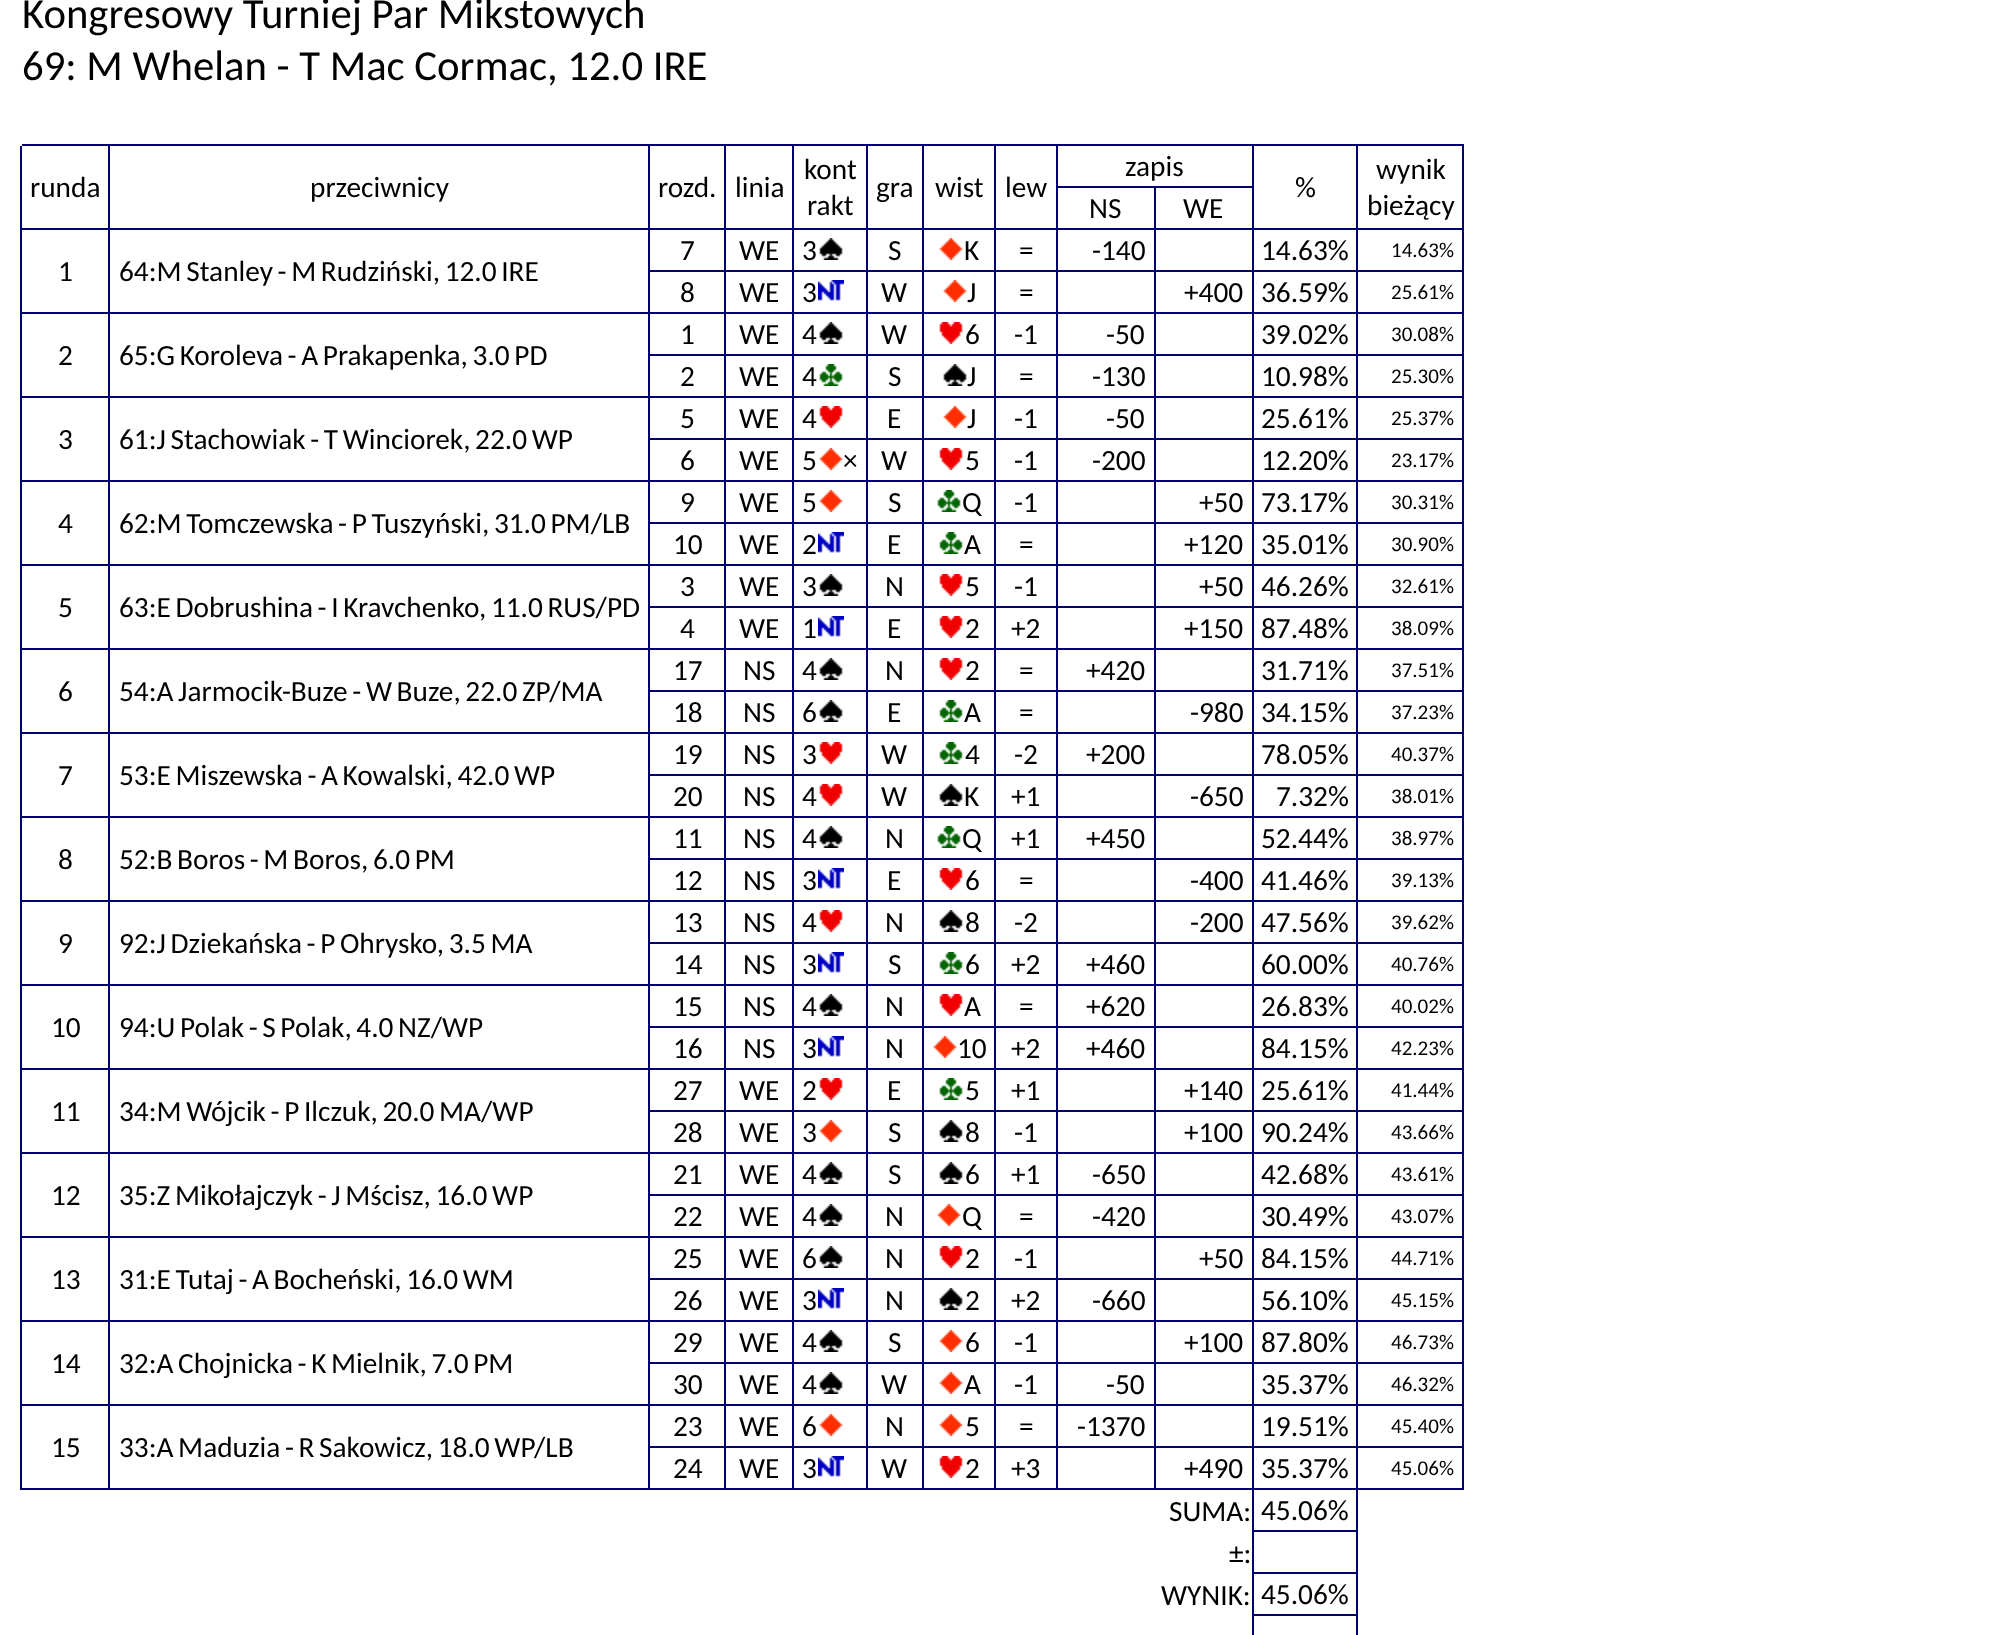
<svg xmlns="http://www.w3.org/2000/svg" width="1997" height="1635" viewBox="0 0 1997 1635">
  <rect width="100%" height="100%" fill="#ffffff"/>
  <rect x="22" y="144" width="1442" height="2" fill="#000071"/>
  <text x="22" y="28" font-family="Carlito" font-size="42.7" fill="#000000">Kongresowy Turniej Par Mikstowych</text>
  <text x="22" y="80" font-family="Carlito" font-size="42.7" fill="#000000">69: M Whelan - T Mac Cormac, 12.0 IRE</text>
  <rect x="20" y="146" width="2" height="1344" fill="#000071"/>
  <rect x="108" y="146" width="2" height="1344" fill="#000071"/>
  <rect x="22" y="228" width="88" height="2" fill="#000071"/>
  <text x="30" y="197" font-family="Carlito" font-size="29.3" fill="#000000">runda</text>
  <rect x="648" y="146" width="2" height="1344" fill="#000071"/>
  <rect x="110" y="228" width="540" height="2" fill="#000071"/>
  <text x="310" y="197" font-family="Carlito" font-size="29.3" fill="#000000">przeciwnicy</text>
  <rect x="724" y="146" width="2" height="1344" fill="#000071"/>
  <rect x="650" y="228" width="76" height="2" fill="#000071"/>
  <text x="658" y="197" font-family="Carlito" font-size="29.3" fill="#000000">rozd.</text>
  <rect x="792" y="146" width="2" height="1344" fill="#000071"/>
  <rect x="726" y="228" width="68" height="2" fill="#000071"/>
  <text x="735" y="197" font-family="Carlito" font-size="29.3" fill="#000000">linia</text>
  <rect x="866" y="146" width="2" height="1344" fill="#000071"/>
  <rect x="794" y="228" width="74" height="2" fill="#000071"/>
  <text x="804" y="179" font-family="Carlito" font-size="29.3" fill="#000000">kont</text>
  <text x="807" y="215" font-family="Carlito" font-size="29.3" fill="#000000">rakt</text>
  <rect x="922" y="146" width="2" height="1344" fill="#000071"/>
  <rect x="868" y="228" width="56" height="2" fill="#000071"/>
  <text x="876" y="197" font-family="Carlito" font-size="29.3" fill="#000000">gra</text>
  <rect x="994" y="146" width="2" height="1344" fill="#000071"/>
  <rect x="924" y="228" width="72" height="2" fill="#000071"/>
  <text x="935" y="197" font-family="Carlito" font-size="29.3" fill="#000000">wist</text>
  <rect x="1056" y="146" width="2" height="1344" fill="#000071"/>
  <rect x="996" y="228" width="62" height="2" fill="#000071"/>
  <text x="1005" y="197" font-family="Carlito" font-size="29.3" fill="#000000">lew</text>
  <rect x="1252" y="146" width="2" height="1489" fill="#000071"/>
  <rect x="1058" y="186" width="196" height="2" fill="#000071"/>
  <text x="1125" y="176" font-family="Carlito" font-size="29.3" fill="#000000">zapis</text>
  <rect x="1356" y="146" width="2" height="1489" fill="#000071"/>
  <rect x="1254" y="228" width="104" height="2" fill="#000071"/>
  <text x="1295" y="197" font-family="Carlito" font-size="29.3" fill="#000000">%</text>
  <rect x="1462" y="146" width="2" height="1344" fill="#000071"/>
  <rect x="1358" y="228" width="106" height="2" fill="#000071"/>
  <text x="1376" y="179" font-family="Carlito" font-size="29.3" fill="#000000">wynik</text>
  <text x="1367" y="215" font-family="Carlito" font-size="29.3" fill="#000000">bieżący</text>
  <rect x="1154" y="188" width="2" height="1302" fill="#000071"/>
  <rect x="1058" y="228" width="196" height="2" fill="#000071"/>
  <text x="1089" y="218" font-family="Carlito" font-size="29.3" fill="#000000">NS</text>
  <text x="1183" y="218" font-family="Carlito" font-size="29.3" fill="#000000">WE</text>
  <rect x="650" y="270" width="814" height="2" fill="#000071"/>
  <text x="680" y="260" font-family="Carlito" font-size="29.3" fill="#000000">7</text>
  <text x="739" y="260" font-family="Carlito" font-size="29.3" fill="#000000">WE</text>
  <text x="802" y="260" font-family="Carlito" font-size="29.3" fill="#000000">3</text>
  <image x="819" y="238" width="24" height="22" href="img1.png"/>
  <text x="888" y="260" font-family="Carlito" font-size="29.3" fill="#000000">S</text>
  <image x="939" y="238" width="24" height="22" href="img2.png"/>
  <text x="964" y="260" font-family="Carlito" font-size="29.3" fill="#000000">K</text>
  <text x="1019" y="260" font-family="Carlito" font-size="29.3" fill="#000000">=</text>
  <text x="1092" y="260" font-family="Carlito" font-size="29.3" fill="#000000">-140</text>
  <text x="1261" y="260" font-family="Carlito" font-size="29.3" fill="#000000">14.63%</text>
  <text x="1391" y="257" font-family="Carlito" font-size="21" fill="#000000">14.63%</text>
  <rect x="22" y="312" width="1442" height="2" fill="#000071"/>
  <text x="58" y="281" font-family="Carlito" font-size="29.3" fill="#000000">1</text>
  <text x="119" y="281" word-spacing="-2" font-family="Carlito" font-size="29.3" fill="#000000">64:M Stanley - M Rudziński, 12.0 IRE</text>
  <text x="680" y="302" font-family="Carlito" font-size="29.3" fill="#000000">8</text>
  <text x="739" y="302" font-family="Carlito" font-size="29.3" fill="#000000">WE</text>
  <text x="802" y="302" font-family="Carlito" font-size="29.3" fill="#000000">3</text>
  <image x="818" y="280" width="26" height="21" href="img3.png"/>
  <text x="881" y="302" font-family="Carlito" font-size="29.3" fill="#000000">W</text>
  <image x="943" y="280" width="24" height="22" href="img2.png"/>
  <text x="967" y="302" font-family="Carlito" font-size="29.3" fill="#000000">J</text>
  <text x="1019" y="302" font-family="Carlito" font-size="29.3" fill="#000000">=</text>
  <text x="1184" y="302" font-family="Carlito" font-size="29.3" fill="#000000">+400</text>
  <text x="1261" y="302" font-family="Carlito" font-size="29.3" fill="#000000">36.59%</text>
  <text x="1391" y="299" font-family="Carlito" font-size="21" fill="#000000">25.61%</text>
  <rect x="650" y="354" width="814" height="2" fill="#000071"/>
  <text x="680" y="344" font-family="Carlito" font-size="29.3" fill="#000000">1</text>
  <text x="739" y="344" font-family="Carlito" font-size="29.3" fill="#000000">WE</text>
  <text x="802" y="344" font-family="Carlito" font-size="29.3" fill="#000000">4</text>
  <image x="819" y="322" width="24" height="22" href="img1.png"/>
  <text x="881" y="344" font-family="Carlito" font-size="29.3" fill="#000000">W</text>
  <image x="939" y="322" width="24" height="22" href="img4.png"/>
  <text x="965" y="344" font-family="Carlito" font-size="29.3" fill="#000000">6</text>
  <text x="1014" y="344" font-family="Carlito" font-size="29.3" fill="#000000">-1</text>
  <text x="1106" y="344" font-family="Carlito" font-size="29.3" fill="#000000">-50</text>
  <text x="1261" y="344" font-family="Carlito" font-size="29.3" fill="#000000">39.02%</text>
  <text x="1391" y="341" font-family="Carlito" font-size="21" fill="#000000">30.08%</text>
  <rect x="22" y="396" width="1442" height="2" fill="#000071"/>
  <text x="58" y="365" font-family="Carlito" font-size="29.3" fill="#000000">2</text>
  <text x="119" y="365" word-spacing="-2" font-family="Carlito" font-size="29.3" fill="#000000">65:G Koroleva - A Prakapenka, 3.0 PD</text>
  <text x="680" y="386" font-family="Carlito" font-size="29.3" fill="#000000">2</text>
  <text x="739" y="386" font-family="Carlito" font-size="29.3" fill="#000000">WE</text>
  <text x="802" y="386" font-family="Carlito" font-size="29.3" fill="#000000">4</text>
  <image x="819" y="364" width="24" height="22" href="img5.png"/>
  <text x="888" y="386" font-family="Carlito" font-size="29.3" fill="#000000">S</text>
  <image x="943" y="364" width="24" height="22" href="img1.png"/>
  <text x="967" y="386" font-family="Carlito" font-size="29.3" fill="#000000">J</text>
  <text x="1019" y="386" font-family="Carlito" font-size="29.3" fill="#000000">=</text>
  <text x="1092" y="386" font-family="Carlito" font-size="29.3" fill="#000000">-130</text>
  <text x="1261" y="386" font-family="Carlito" font-size="29.3" fill="#000000">10.98%</text>
  <text x="1391" y="383" font-family="Carlito" font-size="21" fill="#000000">25.30%</text>
  <rect x="650" y="438" width="814" height="2" fill="#000071"/>
  <text x="680" y="428" font-family="Carlito" font-size="29.3" fill="#000000">5</text>
  <text x="739" y="428" font-family="Carlito" font-size="29.3" fill="#000000">WE</text>
  <text x="802" y="428" font-family="Carlito" font-size="29.3" fill="#000000">4</text>
  <image x="819" y="406" width="24" height="22" href="img4.png"/>
  <text x="887" y="428" font-family="Carlito" font-size="29.3" fill="#000000">E</text>
  <image x="943" y="406" width="24" height="22" href="img2.png"/>
  <text x="967" y="428" font-family="Carlito" font-size="29.3" fill="#000000">J</text>
  <text x="1014" y="428" font-family="Carlito" font-size="29.3" fill="#000000">-1</text>
  <text x="1106" y="428" font-family="Carlito" font-size="29.3" fill="#000000">-50</text>
  <text x="1261" y="428" font-family="Carlito" font-size="29.3" fill="#000000">25.61%</text>
  <text x="1391" y="425" font-family="Carlito" font-size="21" fill="#000000">25.37%</text>
  <rect x="22" y="480" width="1442" height="2" fill="#000071"/>
  <text x="58" y="449" font-family="Carlito" font-size="29.3" fill="#000000">3</text>
  <text x="119" y="449" word-spacing="-2" font-family="Carlito" font-size="29.3" fill="#000000">61:J Stachowiak - T Winciorek, 22.0 WP</text>
  <text x="680" y="470" font-family="Carlito" font-size="29.3" fill="#000000">6</text>
  <text x="739" y="470" font-family="Carlito" font-size="29.3" fill="#000000">WE</text>
  <text x="802" y="470" font-family="Carlito" font-size="29.3" fill="#000000">5</text>
  <image x="819" y="448" width="24" height="22" href="img2.png"/>
  <text x="843" y="470" font-family="Carlito" font-size="29.3" fill="#000000">×</text>
  <text x="881" y="470" font-family="Carlito" font-size="29.3" fill="#000000">W</text>
  <image x="939" y="448" width="24" height="22" href="img4.png"/>
  <text x="965" y="470" font-family="Carlito" font-size="29.3" fill="#000000">5</text>
  <text x="1014" y="470" font-family="Carlito" font-size="29.3" fill="#000000">-1</text>
  <text x="1092" y="470" font-family="Carlito" font-size="29.3" fill="#000000">-200</text>
  <text x="1261" y="470" font-family="Carlito" font-size="29.3" fill="#000000">12.20%</text>
  <text x="1391" y="467" font-family="Carlito" font-size="21" fill="#000000">23.17%</text>
  <rect x="650" y="522" width="814" height="2" fill="#000071"/>
  <text x="680" y="512" font-family="Carlito" font-size="29.3" fill="#000000">9</text>
  <text x="739" y="512" font-family="Carlito" font-size="29.3" fill="#000000">WE</text>
  <text x="802" y="512" font-family="Carlito" font-size="29.3" fill="#000000">5</text>
  <image x="819" y="490" width="24" height="22" href="img2.png"/>
  <text x="888" y="512" font-family="Carlito" font-size="29.3" fill="#000000">S</text>
  <image x="937" y="490" width="24" height="22" href="img5.png"/>
  <text x="962" y="512" font-family="Carlito" font-size="29.3" fill="#000000">Q</text>
  <text x="1014" y="512" font-family="Carlito" font-size="29.3" fill="#000000">-1</text>
  <text x="1199" y="512" font-family="Carlito" font-size="29.3" fill="#000000">+50</text>
  <text x="1261" y="512" font-family="Carlito" font-size="29.3" fill="#000000">73.17%</text>
  <text x="1391" y="509" font-family="Carlito" font-size="21" fill="#000000">30.31%</text>
  <rect x="22" y="564" width="1442" height="2" fill="#000071"/>
  <text x="58" y="533" font-family="Carlito" font-size="29.3" fill="#000000">4</text>
  <text x="119" y="533" word-spacing="-2" font-family="Carlito" font-size="29.3" fill="#000000">62:M Tomczewska - P Tuszyński, 31.0 PM/LB</text>
  <text x="673" y="554" font-family="Carlito" font-size="29.3" fill="#000000">10</text>
  <text x="739" y="554" font-family="Carlito" font-size="29.3" fill="#000000">WE</text>
  <text x="802" y="554" font-family="Carlito" font-size="29.3" fill="#000000">2</text>
  <image x="818" y="532" width="26" height="21" href="img3.png"/>
  <text x="887" y="554" font-family="Carlito" font-size="29.3" fill="#000000">E</text>
  <image x="939" y="532" width="24" height="22" href="img5.png"/>
  <text x="964" y="554" font-family="Carlito" font-size="29.3" fill="#000000">A</text>
  <text x="1019" y="554" font-family="Carlito" font-size="29.3" fill="#000000">=</text>
  <text x="1184" y="554" font-family="Carlito" font-size="29.3" fill="#000000">+120</text>
  <text x="1261" y="554" font-family="Carlito" font-size="29.3" fill="#000000">35.01%</text>
  <text x="1391" y="551" font-family="Carlito" font-size="21" fill="#000000">30.90%</text>
  <rect x="650" y="606" width="814" height="2" fill="#000071"/>
  <text x="680" y="596" font-family="Carlito" font-size="29.3" fill="#000000">3</text>
  <text x="739" y="596" font-family="Carlito" font-size="29.3" fill="#000000">WE</text>
  <text x="802" y="596" font-family="Carlito" font-size="29.3" fill="#000000">3</text>
  <image x="819" y="574" width="24" height="22" href="img1.png"/>
  <text x="885" y="596" font-family="Carlito" font-size="29.3" fill="#000000">N</text>
  <image x="939" y="574" width="24" height="22" href="img4.png"/>
  <text x="965" y="596" font-family="Carlito" font-size="29.3" fill="#000000">5</text>
  <text x="1014" y="596" font-family="Carlito" font-size="29.3" fill="#000000">-1</text>
  <text x="1199" y="596" font-family="Carlito" font-size="29.3" fill="#000000">+50</text>
  <text x="1261" y="596" font-family="Carlito" font-size="29.3" fill="#000000">46.26%</text>
  <text x="1391" y="593" font-family="Carlito" font-size="21" fill="#000000">32.61%</text>
  <rect x="22" y="648" width="1442" height="2" fill="#000071"/>
  <text x="58" y="617" font-family="Carlito" font-size="29.3" fill="#000000">5</text>
  <text x="119" y="617" word-spacing="-2" font-family="Carlito" font-size="29.3" fill="#000000">63:E Dobrushina - I Kravchenko, 11.0 RUS/PD</text>
  <text x="680" y="638" font-family="Carlito" font-size="29.3" fill="#000000">4</text>
  <text x="739" y="638" font-family="Carlito" font-size="29.3" fill="#000000">WE</text>
  <text x="802" y="638" font-family="Carlito" font-size="29.3" fill="#000000">1</text>
  <image x="818" y="616" width="26" height="21" href="img3.png"/>
  <text x="887" y="638" font-family="Carlito" font-size="29.3" fill="#000000">E</text>
  <image x="939" y="616" width="24" height="22" href="img4.png"/>
  <text x="965" y="638" font-family="Carlito" font-size="29.3" fill="#000000">2</text>
  <text x="1011" y="638" font-family="Carlito" font-size="29.3" fill="#000000">+2</text>
  <text x="1184" y="638" font-family="Carlito" font-size="29.3" fill="#000000">+150</text>
  <text x="1261" y="638" font-family="Carlito" font-size="29.3" fill="#000000">87.48%</text>
  <text x="1391" y="635" font-family="Carlito" font-size="21" fill="#000000">38.09%</text>
  <rect x="650" y="690" width="814" height="2" fill="#000071"/>
  <text x="673" y="680" font-family="Carlito" font-size="29.3" fill="#000000">17</text>
  <text x="743" y="680" font-family="Carlito" font-size="29.3" fill="#000000">NS</text>
  <text x="802" y="680" font-family="Carlito" font-size="29.3" fill="#000000">4</text>
  <image x="819" y="658" width="24" height="22" href="img1.png"/>
  <text x="885" y="680" font-family="Carlito" font-size="29.3" fill="#000000">N</text>
  <image x="939" y="658" width="24" height="22" href="img4.png"/>
  <text x="965" y="680" font-family="Carlito" font-size="29.3" fill="#000000">2</text>
  <text x="1019" y="680" font-family="Carlito" font-size="29.3" fill="#000000">=</text>
  <text x="1086" y="680" font-family="Carlito" font-size="29.3" fill="#000000">+420</text>
  <text x="1261" y="680" font-family="Carlito" font-size="29.3" fill="#000000">31.71%</text>
  <text x="1391" y="677" font-family="Carlito" font-size="21" fill="#000000">37.51%</text>
  <rect x="22" y="732" width="1442" height="2" fill="#000071"/>
  <text x="58" y="701" font-family="Carlito" font-size="29.3" fill="#000000">6</text>
  <text x="119" y="701" word-spacing="-2" font-family="Carlito" font-size="29.3" fill="#000000">54:A Jarmocik-Buze - W Buze, 22.0 ZP/MA</text>
  <text x="673" y="722" font-family="Carlito" font-size="29.3" fill="#000000">18</text>
  <text x="743" y="722" font-family="Carlito" font-size="29.3" fill="#000000">NS</text>
  <text x="802" y="722" font-family="Carlito" font-size="29.3" fill="#000000">6</text>
  <image x="819" y="700" width="24" height="22" href="img1.png"/>
  <text x="887" y="722" font-family="Carlito" font-size="29.3" fill="#000000">E</text>
  <image x="939" y="700" width="24" height="22" href="img5.png"/>
  <text x="964" y="722" font-family="Carlito" font-size="29.3" fill="#000000">A</text>
  <text x="1019" y="722" font-family="Carlito" font-size="29.3" fill="#000000">=</text>
  <text x="1190" y="722" font-family="Carlito" font-size="29.3" fill="#000000">-980</text>
  <text x="1261" y="722" font-family="Carlito" font-size="29.3" fill="#000000">34.15%</text>
  <text x="1391" y="719" font-family="Carlito" font-size="21" fill="#000000">37.23%</text>
  <rect x="650" y="774" width="814" height="2" fill="#000071"/>
  <text x="673" y="764" font-family="Carlito" font-size="29.3" fill="#000000">19</text>
  <text x="743" y="764" font-family="Carlito" font-size="29.3" fill="#000000">NS</text>
  <text x="802" y="764" font-family="Carlito" font-size="29.3" fill="#000000">3</text>
  <image x="819" y="742" width="24" height="22" href="img4.png"/>
  <text x="881" y="764" font-family="Carlito" font-size="29.3" fill="#000000">W</text>
  <image x="939" y="742" width="24" height="22" href="img5.png"/>
  <text x="965" y="764" font-family="Carlito" font-size="29.3" fill="#000000">4</text>
  <text x="1014" y="764" font-family="Carlito" font-size="29.3" fill="#000000">-2</text>
  <text x="1086" y="764" font-family="Carlito" font-size="29.3" fill="#000000">+200</text>
  <text x="1261" y="764" font-family="Carlito" font-size="29.3" fill="#000000">78.05%</text>
  <text x="1391" y="761" font-family="Carlito" font-size="21" fill="#000000">40.37%</text>
  <rect x="22" y="816" width="1442" height="2" fill="#000071"/>
  <text x="58" y="785" font-family="Carlito" font-size="29.3" fill="#000000">7</text>
  <text x="119" y="785" word-spacing="-2" font-family="Carlito" font-size="29.3" fill="#000000">53:E Miszewska - A Kowalski, 42.0 WP</text>
  <text x="673" y="806" font-family="Carlito" font-size="29.3" fill="#000000">20</text>
  <text x="743" y="806" font-family="Carlito" font-size="29.3" fill="#000000">NS</text>
  <text x="802" y="806" font-family="Carlito" font-size="29.3" fill="#000000">4</text>
  <image x="819" y="784" width="24" height="22" href="img4.png"/>
  <text x="881" y="806" font-family="Carlito" font-size="29.3" fill="#000000">W</text>
  <image x="939" y="784" width="24" height="22" href="img1.png"/>
  <text x="964" y="806" font-family="Carlito" font-size="29.3" fill="#000000">K</text>
  <text x="1011" y="806" font-family="Carlito" font-size="29.3" fill="#000000">+1</text>
  <text x="1190" y="806" font-family="Carlito" font-size="29.3" fill="#000000">-650</text>
  <text x="1276" y="806" font-family="Carlito" font-size="29.3" fill="#000000">7.32%</text>
  <text x="1391" y="803" font-family="Carlito" font-size="21" fill="#000000">38.01%</text>
  <rect x="650" y="858" width="814" height="2" fill="#000071"/>
  <text x="673" y="848" font-family="Carlito" font-size="29.3" fill="#000000">11</text>
  <text x="743" y="848" font-family="Carlito" font-size="29.3" fill="#000000">NS</text>
  <text x="802" y="848" font-family="Carlito" font-size="29.3" fill="#000000">4</text>
  <image x="819" y="826" width="24" height="22" href="img1.png"/>
  <text x="885" y="848" font-family="Carlito" font-size="29.3" fill="#000000">N</text>
  <image x="937" y="826" width="24" height="22" href="img5.png"/>
  <text x="962" y="848" font-family="Carlito" font-size="29.3" fill="#000000">Q</text>
  <text x="1011" y="848" font-family="Carlito" font-size="29.3" fill="#000000">+1</text>
  <text x="1086" y="848" font-family="Carlito" font-size="29.3" fill="#000000">+450</text>
  <text x="1261" y="848" font-family="Carlito" font-size="29.3" fill="#000000">52.44%</text>
  <text x="1391" y="845" font-family="Carlito" font-size="21" fill="#000000">38.97%</text>
  <rect x="22" y="900" width="1442" height="2" fill="#000071"/>
  <text x="58" y="869" font-family="Carlito" font-size="29.3" fill="#000000">8</text>
  <text x="119" y="869" word-spacing="-2" font-family="Carlito" font-size="29.3" fill="#000000">52:B Boros - M Boros, 6.0 PM</text>
  <text x="673" y="890" font-family="Carlito" font-size="29.3" fill="#000000">12</text>
  <text x="743" y="890" font-family="Carlito" font-size="29.3" fill="#000000">NS</text>
  <text x="802" y="890" font-family="Carlito" font-size="29.3" fill="#000000">3</text>
  <image x="818" y="868" width="26" height="21" href="img3.png"/>
  <text x="887" y="890" font-family="Carlito" font-size="29.3" fill="#000000">E</text>
  <image x="939" y="868" width="24" height="22" href="img4.png"/>
  <text x="965" y="890" font-family="Carlito" font-size="29.3" fill="#000000">6</text>
  <text x="1019" y="890" font-family="Carlito" font-size="29.3" fill="#000000">=</text>
  <text x="1190" y="890" font-family="Carlito" font-size="29.3" fill="#000000">-400</text>
  <text x="1261" y="890" font-family="Carlito" font-size="29.3" fill="#000000">41.46%</text>
  <text x="1391" y="887" font-family="Carlito" font-size="21" fill="#000000">39.13%</text>
  <rect x="650" y="942" width="814" height="2" fill="#000071"/>
  <text x="673" y="932" font-family="Carlito" font-size="29.3" fill="#000000">13</text>
  <text x="743" y="932" font-family="Carlito" font-size="29.3" fill="#000000">NS</text>
  <text x="802" y="932" font-family="Carlito" font-size="29.3" fill="#000000">4</text>
  <image x="819" y="910" width="24" height="22" href="img4.png"/>
  <text x="885" y="932" font-family="Carlito" font-size="29.3" fill="#000000">N</text>
  <image x="939" y="910" width="24" height="22" href="img1.png"/>
  <text x="965" y="932" font-family="Carlito" font-size="29.3" fill="#000000">8</text>
  <text x="1014" y="932" font-family="Carlito" font-size="29.3" fill="#000000">-2</text>
  <text x="1190" y="932" font-family="Carlito" font-size="29.3" fill="#000000">-200</text>
  <text x="1261" y="932" font-family="Carlito" font-size="29.3" fill="#000000">47.56%</text>
  <text x="1391" y="929" font-family="Carlito" font-size="21" fill="#000000">39.62%</text>
  <rect x="22" y="984" width="1442" height="2" fill="#000071"/>
  <text x="58" y="953" font-family="Carlito" font-size="29.3" fill="#000000">9</text>
  <text x="119" y="953" word-spacing="-2" font-family="Carlito" font-size="29.3" fill="#000000">92:J Dziekańska - P Ohrysko, 3.5 MA</text>
  <text x="673" y="974" font-family="Carlito" font-size="29.3" fill="#000000">14</text>
  <text x="743" y="974" font-family="Carlito" font-size="29.3" fill="#000000">NS</text>
  <text x="802" y="974" font-family="Carlito" font-size="29.3" fill="#000000">3</text>
  <image x="818" y="952" width="26" height="21" href="img3.png"/>
  <text x="888" y="974" font-family="Carlito" font-size="29.3" fill="#000000">S</text>
  <image x="939" y="952" width="24" height="22" href="img5.png"/>
  <text x="965" y="974" font-family="Carlito" font-size="29.3" fill="#000000">6</text>
  <text x="1011" y="974" font-family="Carlito" font-size="29.3" fill="#000000">+2</text>
  <text x="1086" y="974" font-family="Carlito" font-size="29.3" fill="#000000">+460</text>
  <text x="1261" y="974" font-family="Carlito" font-size="29.3" fill="#000000">60.00%</text>
  <text x="1391" y="971" font-family="Carlito" font-size="21" fill="#000000">40.76%</text>
  <rect x="650" y="1026" width="814" height="2" fill="#000071"/>
  <text x="673" y="1016" font-family="Carlito" font-size="29.3" fill="#000000">15</text>
  <text x="743" y="1016" font-family="Carlito" font-size="29.3" fill="#000000">NS</text>
  <text x="802" y="1016" font-family="Carlito" font-size="29.3" fill="#000000">4</text>
  <image x="819" y="994" width="24" height="22" href="img1.png"/>
  <text x="885" y="1016" font-family="Carlito" font-size="29.3" fill="#000000">N</text>
  <image x="939" y="994" width="24" height="22" href="img4.png"/>
  <text x="964" y="1016" font-family="Carlito" font-size="29.3" fill="#000000">A</text>
  <text x="1019" y="1016" font-family="Carlito" font-size="29.3" fill="#000000">=</text>
  <text x="1086" y="1016" font-family="Carlito" font-size="29.3" fill="#000000">+620</text>
  <text x="1261" y="1016" font-family="Carlito" font-size="29.3" fill="#000000">26.83%</text>
  <text x="1391" y="1013" font-family="Carlito" font-size="21" fill="#000000">40.02%</text>
  <rect x="22" y="1068" width="1442" height="2" fill="#000071"/>
  <text x="51" y="1037" font-family="Carlito" font-size="29.3" fill="#000000">10</text>
  <text x="119" y="1037" word-spacing="-2" font-family="Carlito" font-size="29.3" fill="#000000">94:U Polak - S Polak, 4.0 NZ/WP</text>
  <text x="673" y="1058" font-family="Carlito" font-size="29.3" fill="#000000">16</text>
  <text x="743" y="1058" font-family="Carlito" font-size="29.3" fill="#000000">NS</text>
  <text x="802" y="1058" font-family="Carlito" font-size="29.3" fill="#000000">3</text>
  <image x="818" y="1036" width="26" height="21" href="img3.png"/>
  <text x="885" y="1058" font-family="Carlito" font-size="29.3" fill="#000000">N</text>
  <image x="933" y="1036" width="24" height="22" href="img2.png"/>
  <text x="957" y="1058" font-family="Carlito" font-size="29.3" fill="#000000">10</text>
  <text x="1011" y="1058" font-family="Carlito" font-size="29.3" fill="#000000">+2</text>
  <text x="1086" y="1058" font-family="Carlito" font-size="29.3" fill="#000000">+460</text>
  <text x="1261" y="1058" font-family="Carlito" font-size="29.3" fill="#000000">84.15%</text>
  <text x="1391" y="1055" font-family="Carlito" font-size="21" fill="#000000">42.23%</text>
  <rect x="650" y="1110" width="814" height="2" fill="#000071"/>
  <text x="673" y="1100" font-family="Carlito" font-size="29.3" fill="#000000">27</text>
  <text x="739" y="1100" font-family="Carlito" font-size="29.3" fill="#000000">WE</text>
  <text x="802" y="1100" font-family="Carlito" font-size="29.3" fill="#000000">2</text>
  <image x="819" y="1078" width="24" height="22" href="img4.png"/>
  <text x="887" y="1100" font-family="Carlito" font-size="29.3" fill="#000000">E</text>
  <image x="939" y="1078" width="24" height="22" href="img5.png"/>
  <text x="965" y="1100" font-family="Carlito" font-size="29.3" fill="#000000">5</text>
  <text x="1011" y="1100" font-family="Carlito" font-size="29.3" fill="#000000">+1</text>
  <text x="1184" y="1100" font-family="Carlito" font-size="29.3" fill="#000000">+140</text>
  <text x="1261" y="1100" font-family="Carlito" font-size="29.3" fill="#000000">25.61%</text>
  <text x="1391" y="1097" font-family="Carlito" font-size="21" fill="#000000">41.44%</text>
  <rect x="22" y="1152" width="1442" height="2" fill="#000071"/>
  <text x="51" y="1121" font-family="Carlito" font-size="29.3" fill="#000000">11</text>
  <text x="119" y="1121" word-spacing="-2" font-family="Carlito" font-size="29.3" fill="#000000">34:M Wójcik - P Ilczuk, 20.0 MA/WP</text>
  <text x="673" y="1142" font-family="Carlito" font-size="29.3" fill="#000000">28</text>
  <text x="739" y="1142" font-family="Carlito" font-size="29.3" fill="#000000">WE</text>
  <text x="802" y="1142" font-family="Carlito" font-size="29.3" fill="#000000">3</text>
  <image x="819" y="1120" width="24" height="22" href="img2.png"/>
  <text x="888" y="1142" font-family="Carlito" font-size="29.3" fill="#000000">S</text>
  <image x="939" y="1120" width="24" height="22" href="img1.png"/>
  <text x="965" y="1142" font-family="Carlito" font-size="29.3" fill="#000000">8</text>
  <text x="1014" y="1142" font-family="Carlito" font-size="29.3" fill="#000000">-1</text>
  <text x="1184" y="1142" font-family="Carlito" font-size="29.3" fill="#000000">+100</text>
  <text x="1261" y="1142" font-family="Carlito" font-size="29.3" fill="#000000">90.24%</text>
  <text x="1391" y="1139" font-family="Carlito" font-size="21" fill="#000000">43.66%</text>
  <rect x="650" y="1194" width="814" height="2" fill="#000071"/>
  <text x="673" y="1184" font-family="Carlito" font-size="29.3" fill="#000000">21</text>
  <text x="739" y="1184" font-family="Carlito" font-size="29.3" fill="#000000">WE</text>
  <text x="802" y="1184" font-family="Carlito" font-size="29.3" fill="#000000">4</text>
  <image x="819" y="1162" width="24" height="22" href="img1.png"/>
  <text x="888" y="1184" font-family="Carlito" font-size="29.3" fill="#000000">S</text>
  <image x="939" y="1162" width="24" height="22" href="img1.png"/>
  <text x="965" y="1184" font-family="Carlito" font-size="29.3" fill="#000000">6</text>
  <text x="1011" y="1184" font-family="Carlito" font-size="29.3" fill="#000000">+1</text>
  <text x="1092" y="1184" font-family="Carlito" font-size="29.3" fill="#000000">-650</text>
  <text x="1261" y="1184" font-family="Carlito" font-size="29.3" fill="#000000">42.68%</text>
  <text x="1391" y="1181" font-family="Carlito" font-size="21" fill="#000000">43.61%</text>
  <rect x="22" y="1236" width="1442" height="2" fill="#000071"/>
  <text x="51" y="1205" font-family="Carlito" font-size="29.3" fill="#000000">12</text>
  <text x="119" y="1205" word-spacing="-2" font-family="Carlito" font-size="29.3" fill="#000000">35:Z Mikołajczyk - J Mścisz, 16.0 WP</text>
  <text x="673" y="1226" font-family="Carlito" font-size="29.3" fill="#000000">22</text>
  <text x="739" y="1226" font-family="Carlito" font-size="29.3" fill="#000000">WE</text>
  <text x="802" y="1226" font-family="Carlito" font-size="29.3" fill="#000000">4</text>
  <image x="819" y="1204" width="24" height="22" href="img1.png"/>
  <text x="885" y="1226" font-family="Carlito" font-size="29.3" fill="#000000">N</text>
  <image x="937" y="1204" width="24" height="22" href="img2.png"/>
  <text x="962" y="1226" font-family="Carlito" font-size="29.3" fill="#000000">Q</text>
  <text x="1019" y="1226" font-family="Carlito" font-size="29.3" fill="#000000">=</text>
  <text x="1092" y="1226" font-family="Carlito" font-size="29.3" fill="#000000">-420</text>
  <text x="1261" y="1226" font-family="Carlito" font-size="29.3" fill="#000000">30.49%</text>
  <text x="1391" y="1223" font-family="Carlito" font-size="21" fill="#000000">43.07%</text>
  <rect x="650" y="1278" width="814" height="2" fill="#000071"/>
  <text x="673" y="1268" font-family="Carlito" font-size="29.3" fill="#000000">25</text>
  <text x="739" y="1268" font-family="Carlito" font-size="29.3" fill="#000000">WE</text>
  <text x="802" y="1268" font-family="Carlito" font-size="29.3" fill="#000000">6</text>
  <image x="819" y="1246" width="24" height="22" href="img1.png"/>
  <text x="885" y="1268" font-family="Carlito" font-size="29.3" fill="#000000">N</text>
  <image x="939" y="1246" width="24" height="22" href="img4.png"/>
  <text x="965" y="1268" font-family="Carlito" font-size="29.3" fill="#000000">2</text>
  <text x="1014" y="1268" font-family="Carlito" font-size="29.3" fill="#000000">-1</text>
  <text x="1199" y="1268" font-family="Carlito" font-size="29.3" fill="#000000">+50</text>
  <text x="1261" y="1268" font-family="Carlito" font-size="29.3" fill="#000000">84.15%</text>
  <text x="1391" y="1265" font-family="Carlito" font-size="21" fill="#000000">44.71%</text>
  <rect x="22" y="1320" width="1442" height="2" fill="#000071"/>
  <text x="51" y="1289" font-family="Carlito" font-size="29.3" fill="#000000">13</text>
  <text x="119" y="1289" word-spacing="-2" font-family="Carlito" font-size="29.3" fill="#000000">31:E Tutaj - A Bocheński, 16.0 WM</text>
  <text x="673" y="1310" font-family="Carlito" font-size="29.3" fill="#000000">26</text>
  <text x="739" y="1310" font-family="Carlito" font-size="29.3" fill="#000000">WE</text>
  <text x="802" y="1310" font-family="Carlito" font-size="29.3" fill="#000000">3</text>
  <image x="818" y="1288" width="26" height="21" href="img3.png"/>
  <text x="885" y="1310" font-family="Carlito" font-size="29.3" fill="#000000">N</text>
  <image x="939" y="1288" width="24" height="22" href="img1.png"/>
  <text x="965" y="1310" font-family="Carlito" font-size="29.3" fill="#000000">2</text>
  <text x="1011" y="1310" font-family="Carlito" font-size="29.3" fill="#000000">+2</text>
  <text x="1092" y="1310" font-family="Carlito" font-size="29.3" fill="#000000">-660</text>
  <text x="1261" y="1310" font-family="Carlito" font-size="29.3" fill="#000000">56.10%</text>
  <text x="1391" y="1307" font-family="Carlito" font-size="21" fill="#000000">45.15%</text>
  <rect x="650" y="1362" width="814" height="2" fill="#000071"/>
  <text x="673" y="1352" font-family="Carlito" font-size="29.3" fill="#000000">29</text>
  <text x="739" y="1352" font-family="Carlito" font-size="29.3" fill="#000000">WE</text>
  <text x="802" y="1352" font-family="Carlito" font-size="29.3" fill="#000000">4</text>
  <image x="819" y="1330" width="24" height="22" href="img1.png"/>
  <text x="888" y="1352" font-family="Carlito" font-size="29.3" fill="#000000">S</text>
  <image x="939" y="1330" width="24" height="22" href="img2.png"/>
  <text x="965" y="1352" font-family="Carlito" font-size="29.3" fill="#000000">6</text>
  <text x="1014" y="1352" font-family="Carlito" font-size="29.3" fill="#000000">-1</text>
  <text x="1184" y="1352" font-family="Carlito" font-size="29.3" fill="#000000">+100</text>
  <text x="1261" y="1352" font-family="Carlito" font-size="29.3" fill="#000000">87.80%</text>
  <text x="1391" y="1349" font-family="Carlito" font-size="21" fill="#000000">46.73%</text>
  <rect x="22" y="1404" width="1442" height="2" fill="#000071"/>
  <text x="51" y="1373" font-family="Carlito" font-size="29.3" fill="#000000">14</text>
  <text x="119" y="1373" word-spacing="-2" font-family="Carlito" font-size="29.3" fill="#000000">32:A Chojnicka - K Mielnik, 7.0 PM</text>
  <text x="673" y="1394" font-family="Carlito" font-size="29.3" fill="#000000">30</text>
  <text x="739" y="1394" font-family="Carlito" font-size="29.3" fill="#000000">WE</text>
  <text x="802" y="1394" font-family="Carlito" font-size="29.3" fill="#000000">4</text>
  <image x="819" y="1372" width="24" height="22" href="img1.png"/>
  <text x="881" y="1394" font-family="Carlito" font-size="29.3" fill="#000000">W</text>
  <image x="939" y="1372" width="24" height="22" href="img2.png"/>
  <text x="964" y="1394" font-family="Carlito" font-size="29.3" fill="#000000">A</text>
  <text x="1014" y="1394" font-family="Carlito" font-size="29.3" fill="#000000">-1</text>
  <text x="1106" y="1394" font-family="Carlito" font-size="29.3" fill="#000000">-50</text>
  <text x="1261" y="1394" font-family="Carlito" font-size="29.3" fill="#000000">35.37%</text>
  <text x="1391" y="1391" font-family="Carlito" font-size="21" fill="#000000">46.32%</text>
  <rect x="650" y="1446" width="814" height="2" fill="#000071"/>
  <text x="673" y="1436" font-family="Carlito" font-size="29.3" fill="#000000">23</text>
  <text x="739" y="1436" font-family="Carlito" font-size="29.3" fill="#000000">WE</text>
  <text x="802" y="1436" font-family="Carlito" font-size="29.3" fill="#000000">6</text>
  <image x="819" y="1414" width="24" height="22" href="img2.png"/>
  <text x="885" y="1436" font-family="Carlito" font-size="29.3" fill="#000000">N</text>
  <image x="939" y="1414" width="24" height="22" href="img2.png"/>
  <text x="965" y="1436" font-family="Carlito" font-size="29.3" fill="#000000">5</text>
  <text x="1019" y="1436" font-family="Carlito" font-size="29.3" fill="#000000">=</text>
  <text x="1077" y="1436" font-family="Carlito" font-size="29.3" fill="#000000">-1370</text>
  <text x="1261" y="1436" font-family="Carlito" font-size="29.3" fill="#000000">19.51%</text>
  <text x="1391" y="1433" font-family="Carlito" font-size="21" fill="#000000">45.40%</text>
  <rect x="22" y="1488" width="1442" height="2" fill="#000071"/>
  <text x="51" y="1457" font-family="Carlito" font-size="29.3" fill="#000000">15</text>
  <text x="119" y="1457" word-spacing="-2" font-family="Carlito" font-size="29.3" fill="#000000">33:A Maduzia - R Sakowicz, 18.0 WP/LB</text>
  <text x="673" y="1478" font-family="Carlito" font-size="29.3" fill="#000000">24</text>
  <text x="739" y="1478" font-family="Carlito" font-size="29.3" fill="#000000">WE</text>
  <text x="802" y="1478" font-family="Carlito" font-size="29.3" fill="#000000">3</text>
  <image x="818" y="1456" width="26" height="21" href="img3.png"/>
  <text x="881" y="1478" font-family="Carlito" font-size="29.3" fill="#000000">W</text>
  <image x="939" y="1456" width="24" height="22" href="img4.png"/>
  <text x="965" y="1478" font-family="Carlito" font-size="29.3" fill="#000000">2</text>
  <text x="1011" y="1478" font-family="Carlito" font-size="29.3" fill="#000000">+3</text>
  <text x="1184" y="1478" font-family="Carlito" font-size="29.3" fill="#000000">+490</text>
  <text x="1261" y="1478" font-family="Carlito" font-size="29.3" fill="#000000">35.37%</text>
  <text x="1391" y="1475" font-family="Carlito" font-size="21" fill="#000000">45.06%</text>
  <text x="1169" y="1521" font-family="Carlito" font-size="29.3" fill="#000000">SUMA:</text>
  <rect x="1254" y="1530" width="104" height="2" fill="#000071"/>
  <text x="1261" y="1520" font-family="Carlito" font-size="29.3" fill="#000000">45.06%</text>
  <text x="1229" y="1563" font-family="Carlito" font-size="29.3" fill="#000000">±:</text>
  <rect x="1254" y="1572" width="104" height="2" fill="#000071"/>
  <text x="1161" y="1605" font-family="Carlito" font-size="29.3" fill="#000000">WYNIK:</text>
  <rect x="1254" y="1614" width="104" height="2" fill="#000071"/>
  <text x="1261" y="1604" font-family="Carlito" font-size="29.3" fill="#000000">45.06%</text>
</svg>
